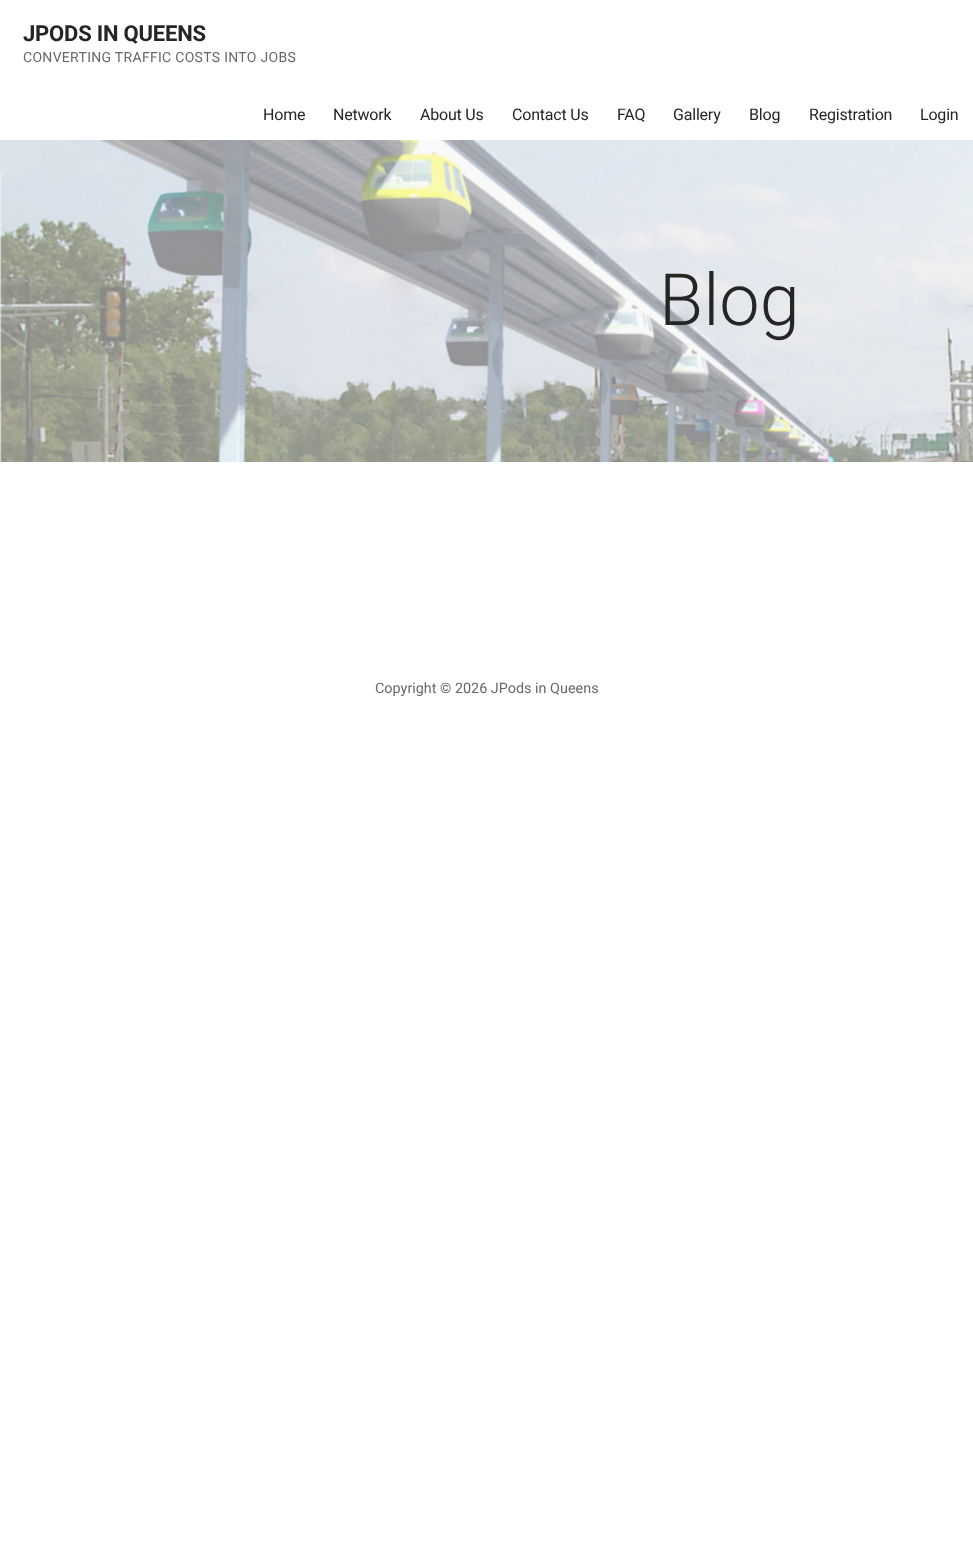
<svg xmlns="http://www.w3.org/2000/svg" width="973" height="1555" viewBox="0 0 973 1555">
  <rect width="100%" height="100%" fill="#ffffff"/>
  <text x="23" y="41" font-family="Roboto" font-size="22" font-weight="bold" letter-spacing="-0.2" fill="#252525">JPODS IN QUEENS</text>
  <text x="23" y="62" font-family="Roboto" font-size="14" letter-spacing="0.3" fill="#686868">CONVERTING TRAFFIC COSTS INTO JOBS</text>
  <text x="263" y="120" font-family="Roboto" font-size="16" letter-spacing="-0.2" fill="#252525">Home</text>
  <text x="333" y="120" font-family="Roboto" font-size="16" letter-spacing="-0.2" fill="#252525">Network</text>
  <text x="420" y="120" font-family="Roboto" font-size="16" letter-spacing="-0.2" fill="#252525">About Us</text>
  <text x="512" y="120" font-family="Roboto" font-size="16" letter-spacing="-0.2" fill="#252525">Contact Us</text>
  <text x="617" y="120" font-family="Roboto" font-size="16" letter-spacing="-0.2" fill="#252525">FAQ</text>
  <text x="673" y="120" font-family="Roboto" font-size="16" letter-spacing="-0.2" fill="#252525">Gallery</text>
  <text x="749" y="120" font-family="Roboto" font-size="16" letter-spacing="-0.2" fill="#252525">Blog</text>
  <text x="809" y="120" font-family="Roboto" font-size="16" letter-spacing="-0.2" fill="#252525">Registration</text>
  <text x="920" y="120" font-family="Roboto" font-size="16" letter-spacing="-0.2" fill="#252525">Login</text>
  <image x="0" y="140" width="973" height="322" href="img1.png"/>
  <text x="659" y="325" font-family="Roboto" font-size="72" font-weight="300" fill="#252525">Blog</text>
  <text x="375" y="693" font-family="Roboto" font-size="14.4" fill="#686868">Copyright © 2026 JPods in Queens</text>
</svg>
